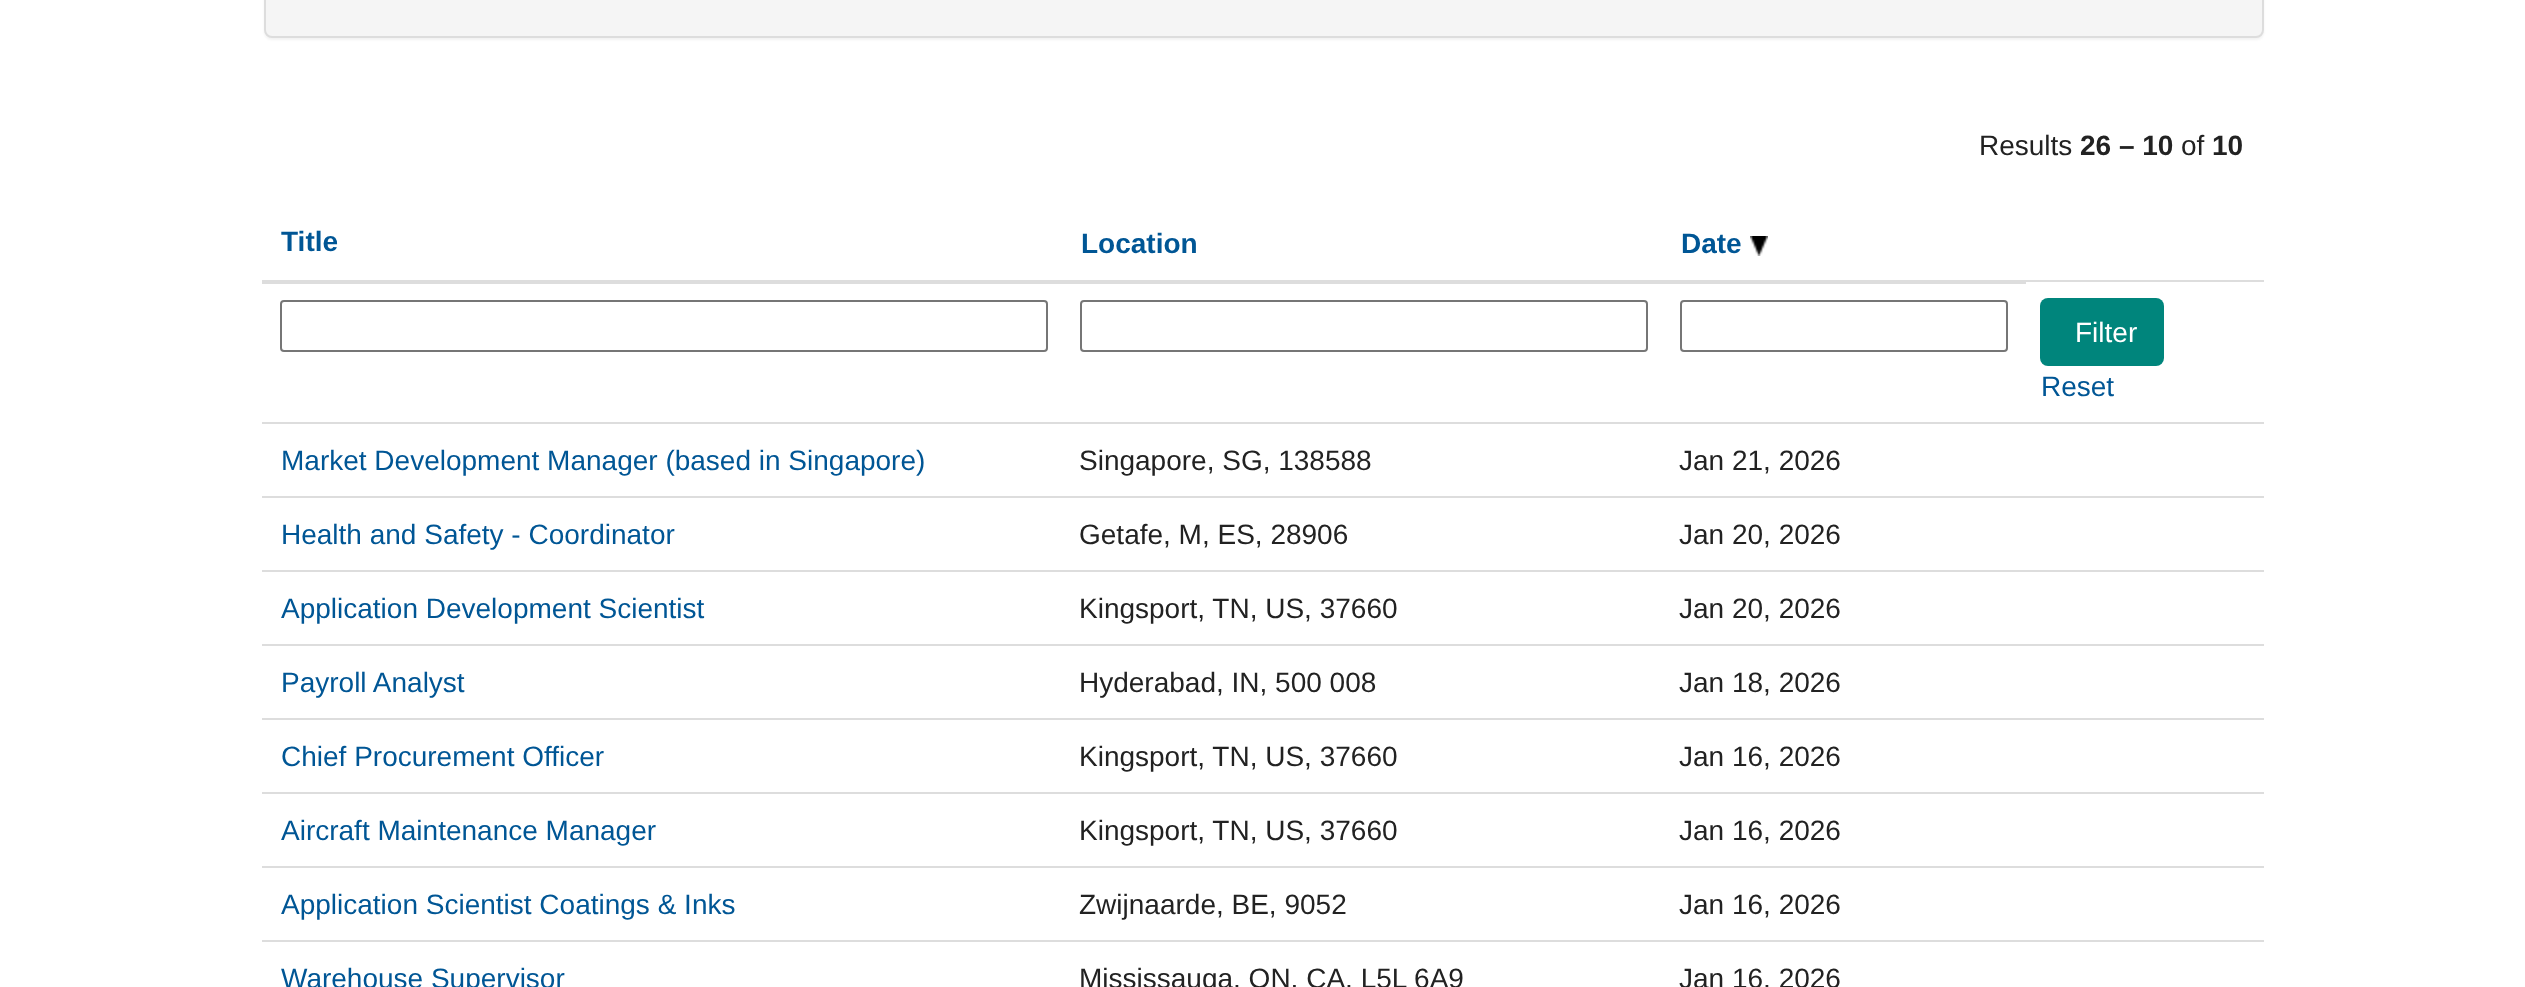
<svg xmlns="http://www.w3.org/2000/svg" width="2525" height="987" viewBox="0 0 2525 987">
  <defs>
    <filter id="blur1" x="-50%" y="-200%" width="200%" height="500%"><feGaussianBlur stdDeviation="1"/></filter>
  </defs>
  <rect width="100%" height="100%" fill="#ffffff"/>
  <rect x="264" y="-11" width="2000" height="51" rx="8" fill="#000000" fill-opacity="0.05" filter="url(#blur1)"/>
  <rect x="265" y="-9" width="1998" height="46" rx="7" fill="#f5f5f5" stroke="#dddddd" stroke-width="2"/>
  <text x="1979" y="155" font-family="Liberation Sans" font-size="28" fill="#222222">Results</text>
  <text x="2080" y="155" font-family="Liberation Sans" font-size="28" font-weight="bold" fill="#222222">26 – 10</text>
  <text x="2181" y="155" font-family="Liberation Sans" font-size="28" fill="#222222">of</text>
  <text x="2212" y="155" font-family="Liberation Sans" font-size="28" font-weight="bold" fill="#222222">10</text>
  <text x="281" y="251" font-family="Liberation Sans" font-size="28" font-weight="bold" fill="#005695">Title</text>
  <text x="1081" y="253" font-family="Liberation Sans" font-size="28" font-weight="bold" fill="#005695">Location</text>
  <rect x="2022" y="280" width="242" height="2" fill="#dddddd"/>
  <rect x="262" y="280" width="1764" height="4" fill="#dddddd"/>
  <text x="1681" y="253" font-family="Liberation Sans" font-size="28" font-weight="bold" fill="#005695">Date</text>
  <image x="1750" y="236" width="18" height="20" href="img1.png"/>
  <rect x="281" y="301" width="766" height="50" rx="3" fill="none" stroke="#767676" stroke-width="2"/>
  <rect x="1081" y="301" width="566" height="50" rx="3" fill="none" stroke="#767676" stroke-width="2"/>
  <rect x="1681" y="301" width="326" height="50" rx="3" fill="none" stroke="#767676" stroke-width="2"/>
  <rect x="2040" y="298" width="124" height="68" rx="8" fill="#00857c"/>
  <text x="2075" y="342" font-family="Liberation Sans" font-size="28" fill="#ffffff">Filter</text>
  <text x="2041" y="396" font-family="Liberation Sans" font-size="28" fill="#005695">Reset</text>
  <rect x="262" y="422" width="2002" height="2" fill="#dddddd"/>
  <text x="281" y="470" font-family="Liberation Sans" font-size="28" fill="#005695">Market Development Manager (based in Singapore)</text>
  <text x="1079" y="470" font-family="Liberation Sans" font-size="28" fill="#222222">Singapore, SG, 138588</text>
  <text x="1679" y="470" font-family="Liberation Sans" font-size="28" fill="#222222">Jan 21, 2026</text>
  <rect x="262" y="496" width="2002" height="2" fill="#dddddd"/>
  <text x="281" y="544" font-family="Liberation Sans" font-size="28" fill="#005695">Health and Safety - Coordinator</text>
  <text x="1079" y="544" font-family="Liberation Sans" font-size="28" fill="#222222">Getafe, M, ES, 28906</text>
  <text x="1679" y="544" font-family="Liberation Sans" font-size="28" fill="#222222">Jan 20, 2026</text>
  <rect x="262" y="570" width="2002" height="2" fill="#dddddd"/>
  <text x="281" y="618" font-family="Liberation Sans" font-size="28" fill="#005695">Application Development Scientist</text>
  <text x="1079" y="618" font-family="Liberation Sans" font-size="28" fill="#222222">Kingsport, TN, US, 37660</text>
  <text x="1679" y="618" font-family="Liberation Sans" font-size="28" fill="#222222">Jan 20, 2026</text>
  <rect x="262" y="644" width="2002" height="2" fill="#dddddd"/>
  <text x="281" y="692" font-family="Liberation Sans" font-size="28" fill="#005695">Payroll Analyst</text>
  <text x="1079" y="692" font-family="Liberation Sans" font-size="28" fill="#222222">Hyderabad, IN, 500 008</text>
  <text x="1679" y="692" font-family="Liberation Sans" font-size="28" fill="#222222">Jan 18, 2026</text>
  <rect x="262" y="718" width="2002" height="2" fill="#dddddd"/>
  <text x="281" y="766" font-family="Liberation Sans" font-size="28" fill="#005695">Chief Procurement Officer</text>
  <text x="1079" y="766" font-family="Liberation Sans" font-size="28" fill="#222222">Kingsport, TN, US, 37660</text>
  <text x="1679" y="766" font-family="Liberation Sans" font-size="28" fill="#222222">Jan 16, 2026</text>
  <rect x="262" y="792" width="2002" height="2" fill="#dddddd"/>
  <text x="281" y="840" font-family="Liberation Sans" font-size="28" fill="#005695">Aircraft Maintenance Manager</text>
  <text x="1079" y="840" font-family="Liberation Sans" font-size="28" fill="#222222">Kingsport, TN, US, 37660</text>
  <text x="1679" y="840" font-family="Liberation Sans" font-size="28" fill="#222222">Jan 16, 2026</text>
  <rect x="262" y="866" width="2002" height="2" fill="#dddddd"/>
  <text x="281" y="914" font-family="Liberation Sans" font-size="28" fill="#005695">Application Scientist Coatings &amp; Inks</text>
  <text x="1079" y="914" font-family="Liberation Sans" font-size="28" fill="#222222">Zwijnaarde, BE, 9052</text>
  <text x="1679" y="914" font-family="Liberation Sans" font-size="28" fill="#222222">Jan 16, 2026</text>
  <rect x="262" y="940" width="2002" height="2" fill="#dddddd"/>
  <text x="281" y="988" font-family="Liberation Sans" font-size="28" fill="#005695">Warehouse Supervisor</text>
  <text x="1079" y="988" font-family="Liberation Sans" font-size="28" fill="#222222">Mississauga, ON, CA, L5L 6A9</text>
  <text x="1679" y="988" font-family="Liberation Sans" font-size="28" fill="#222222">Jan 16, 2026</text>
</svg>
